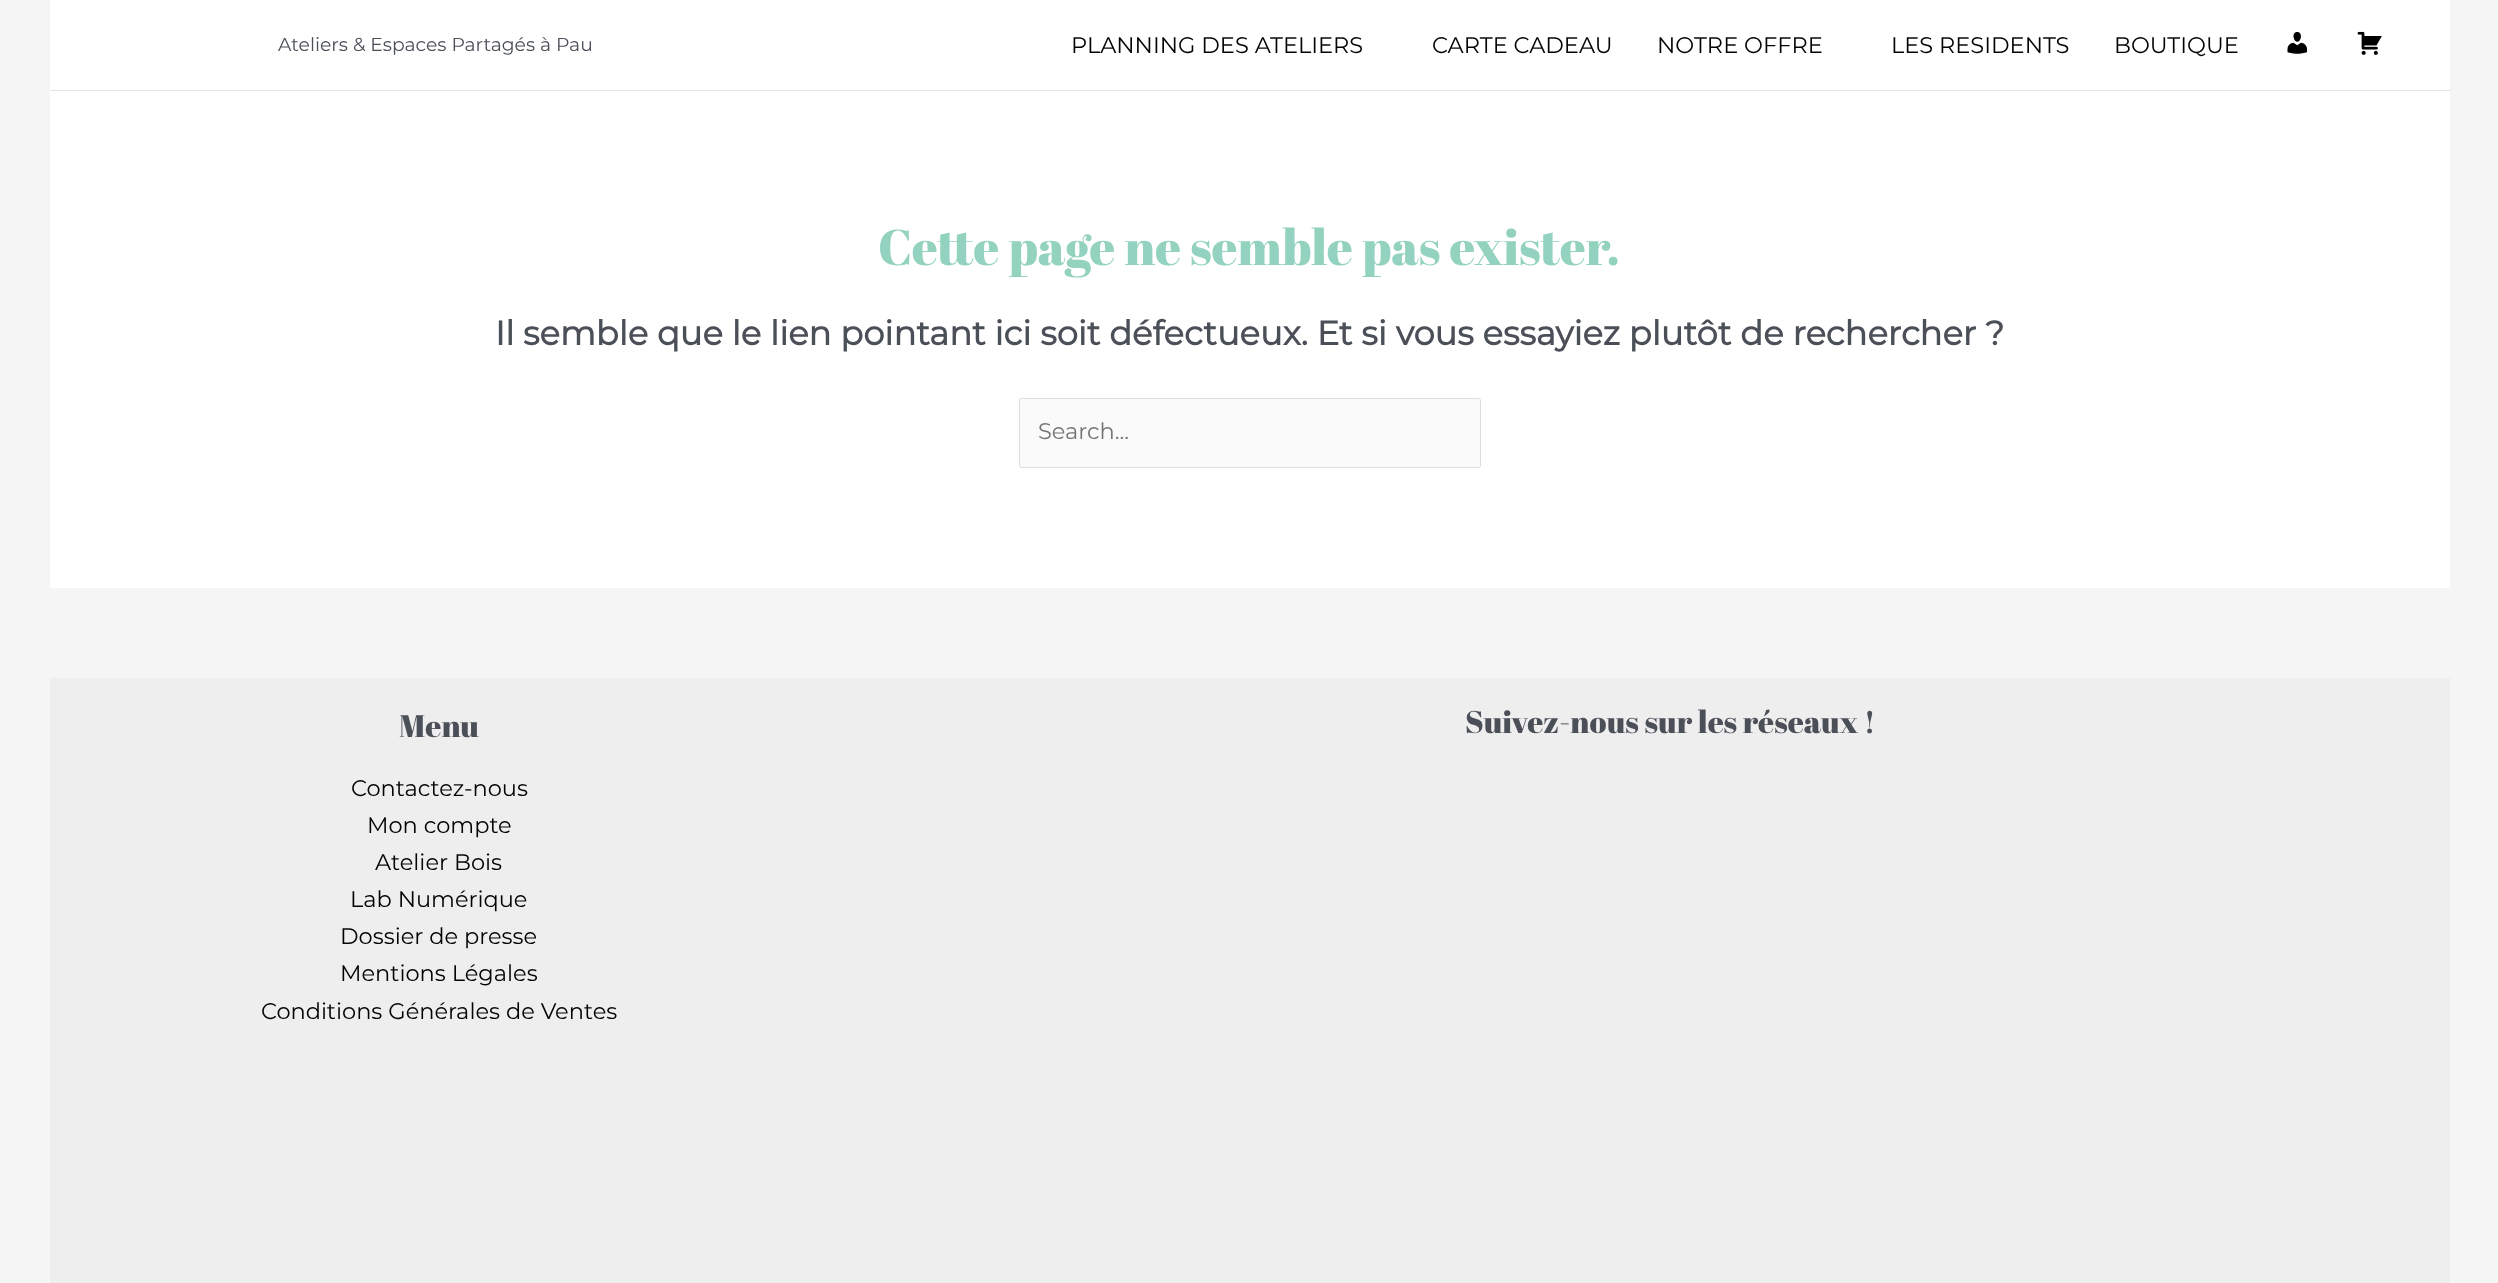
<svg xmlns="http://www.w3.org/2000/svg" width="2498" height="1283" viewBox="0 0 2498 1283">
  <rect width="100%" height="100%" fill="#f5f5f5"/>
  <rect x="50" y="0" width="2400" height="90" fill="#ffffff"/>
  <rect x="50" y="90" width="2400" height="1" fill="#e5e5e5"/>
  <text x="278" y="51" font-family="Montserrat" font-size="18.75" font-weight="100" fill="#4b4f58">Ateliers &amp; Espaces Partagés à Pau</text>
  <text x="1071" y="53" font-family="Montserrat" font-size="22.5" font-weight="100" fill="#030303">PLANNING DES ATELIERS</text>
  <text x="1432" y="53" font-family="Montserrat" font-size="22.5" font-weight="100" fill="#030303">CARTE CADEAU</text>
  <text x="1657" y="53" font-family="Montserrat" font-size="22.5" font-weight="100" fill="#030303">NOTRE OFFRE</text>
  <text x="1891" y="53" font-family="Montserrat" font-size="22.5" font-weight="100" fill="#030303">LES RESIDENTS</text>
  <text x="2114" y="53" font-family="Montserrat" font-size="22.5" font-weight="100" fill="#030303">BOUTIQUE</text>
  <image x="2287" y="31" width="20" height="23" href="img1.png"/>
  <image x="2357" y="31" width="25" height="24" href="img2.png"/>
  <rect x="50" y="91" width="2400" height="497" fill="#ffffff"/>
  <text x="878" y="265" font-family="Abril Fatface" font-size="50" fill="#92d2be">Cette page ne semble pas exister.</text>
  <text x="495" y="345" font-family="Montserrat" font-size="33.75" font-weight="bold" fill="#4b4f58">Il semble que le lien pointant ici soit défectueux. Et si vous essayiez plutôt de rechercher ?</text>
  <rect x="1019.5" y="398.5" width="461" height="69" rx="2" fill="#fafafa" stroke="#dddddd"/>
  <text x="1038" y="439" font-family="Montserrat" font-size="22.5" font-weight="100" fill="#757575">Search...</text>
  <rect x="50" y="678" width="2400" height="605" fill="#eeeeee"/>
  <text x="399" y="737" font-family="Abril Fatface" font-size="31.25" fill="#4b4f58">Menu</text>
  <text x="351" y="796" font-family="Montserrat" font-size="22.5" font-weight="100" fill="#030303">Contactez-nous</text>
  <text x="367" y="833" font-family="Montserrat" font-size="22.5" font-weight="100" fill="#030303">Mon compte</text>
  <text x="375" y="870" font-family="Montserrat" font-size="22.5" font-weight="100" fill="#030303">Atelier Bois</text>
  <text x="350" y="907" font-family="Montserrat" font-size="22.5" font-weight="100" fill="#030303">Lab Numérique</text>
  <text x="340" y="944" font-family="Montserrat" font-size="22.5" font-weight="100" fill="#030303">Dossier de presse</text>
  <text x="340" y="981" font-family="Montserrat" font-size="22.5" font-weight="100" fill="#030303">Mentions Légales</text>
  <text x="261" y="1019" font-family="Montserrat" font-size="22.5" font-weight="100" fill="#030303">Conditions Générales de Ventes</text>
  <text x="1465" y="733" font-family="Abril Fatface" font-size="31.25" fill="#4b4f58">Suivez-nous sur les réseaux !</text>
</svg>
